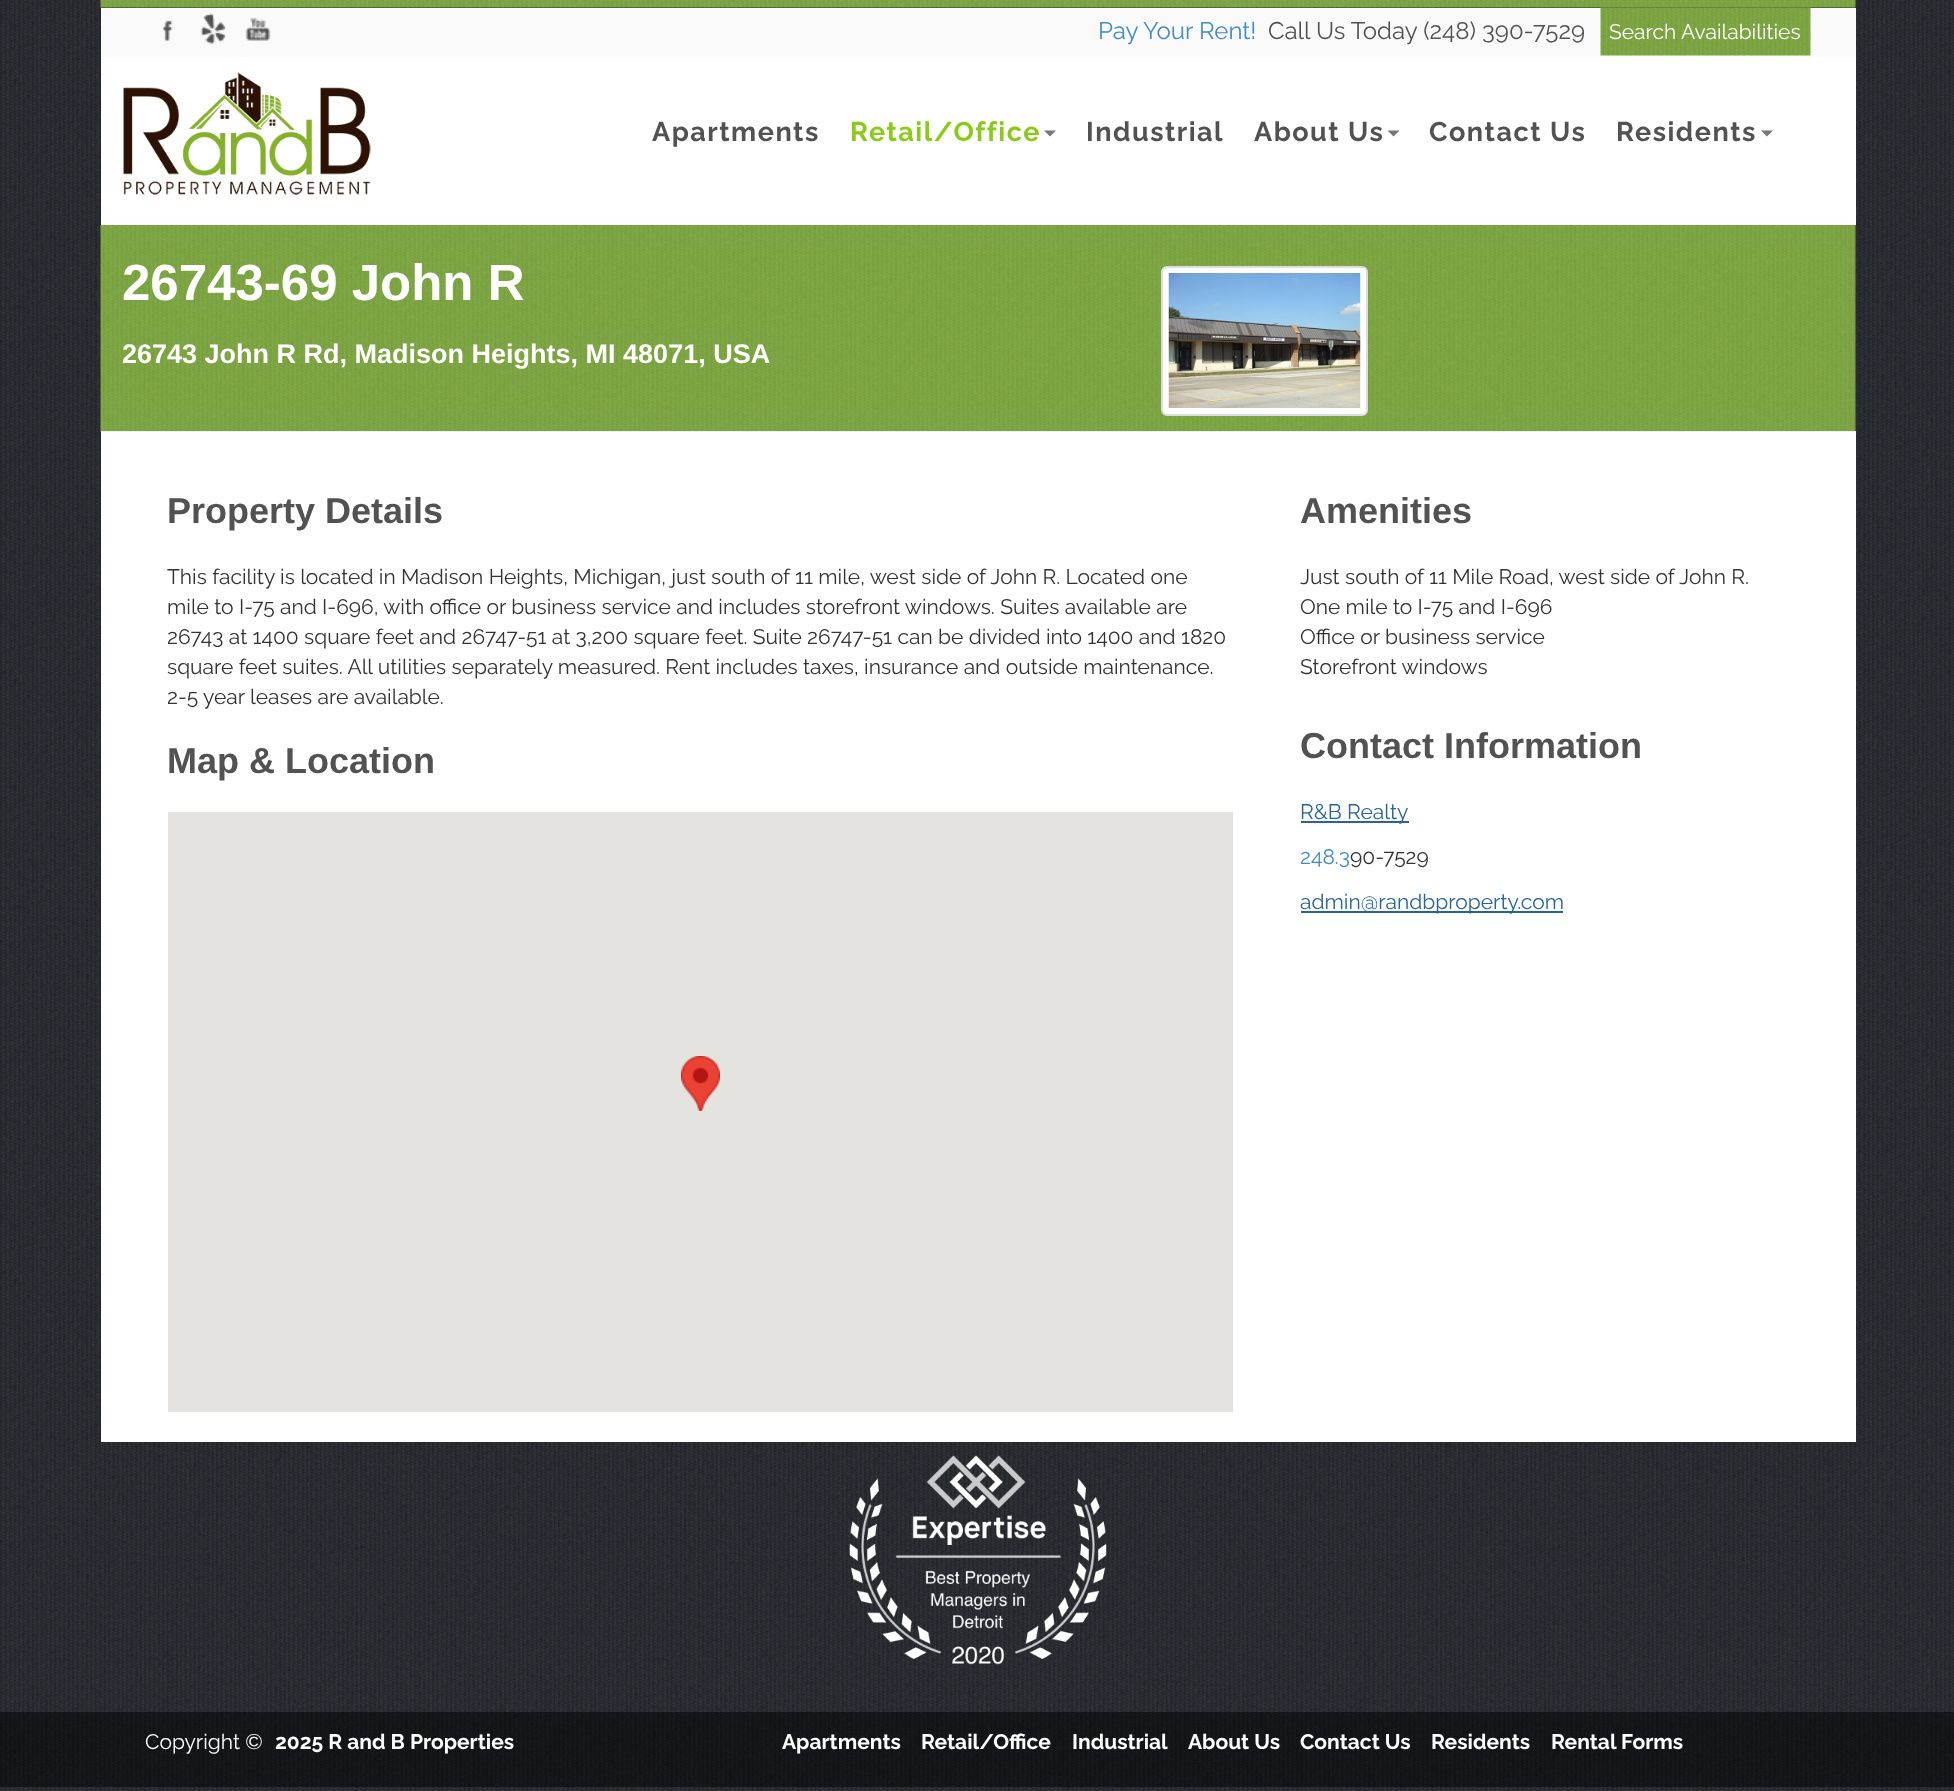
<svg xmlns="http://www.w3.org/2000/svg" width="1954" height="1791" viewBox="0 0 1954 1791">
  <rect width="100%" height="100%" fill="#ffffff"/>
  <image x="0" y="0" width="1954" height="1791" href="img1.png"/>
  <image x="100" y="0" width="1756" height="8" href="img2.png"/>
  <rect x="101" y="8" width="1755" height="49" fill="#fafafa"/>
  <image x="163" y="20" width="10" height="21" href="img3.png"/>
  <image x="200" y="13" width="26" height="31" href="img4.png"/>
  <image x="245" y="17" width="26" height="24" href="img5.png"/>
  <text x="1098" y="39" font-family="Raleway" font-size="24" fill="#428bca">Pay Your Rent!</text>
  <text x="1268" y="39" font-family="Raleway" font-size="24" fill="#525252">Call Us Today (248) 390-7529</text>
  <image x="1600" y="7" width="211" height="49" href="img6.png"/>
  <text x="1609" y="39" font-family="Raleway" font-size="21" fill="#ffffff">Search Availabilities</text>
  <rect x="101" y="57" width="1755" height="168" fill="#ffffff"/>
  <image x="123" y="72" width="248" height="123" href="img7.png"/>
  <text x="652" y="141" font-family="Raleway" font-size="27" font-weight="bold" letter-spacing="1.5" fill="#525252">Apartments</text>
  <text x="850" y="141" font-family="Raleway" font-size="27" font-weight="bold" letter-spacing="1.5" fill="#8cca1a">Retail/Office</text>
  <path d="M1044 130.5H1056L1050 136.5Z" fill="#777777"/>
  <text x="1086" y="141" font-family="Raleway" font-size="27" font-weight="bold" letter-spacing="1.5" fill="#525252">Industrial</text>
  <text x="1254" y="141" font-family="Raleway" font-size="27" font-weight="bold" letter-spacing="1.5" fill="#525252">About Us</text>
  <path d="M1387.5 130.5H1399.5L1393.5 136.5Z" fill="#777777"/>
  <text x="1429" y="141" font-family="Raleway" font-size="27" font-weight="bold" letter-spacing="1.5" fill="#525252">Contact Us</text>
  <text x="1616" y="141" font-family="Raleway" font-size="27" font-weight="bold" letter-spacing="1.5" fill="#525252">Residents</text>
  <path d="M1761 130.5H1773L1767 136.5Z" fill="#777777"/>
  <image x="100" y="225" width="1756" height="207" href="img8.png"/>
  <rect x="101" y="431" width="1755" height="1" fill="#eeeeee"/>
  <text x="122" y="300" font-family="Liberation Sans" font-size="51" font-weight="bold" fill="#ffffff">26743-69 John R</text>
  <text x="122" y="363" font-family="Liberation Sans" font-size="27" font-weight="bold" fill="#ffffff">26743 John R Rd, Madison Heights, MI 48071, USA</text>
  <rect x="1162" y="267" width="205" height="148" rx="5" fill="#ffffff" stroke="#dddddd" stroke-width="2"/>
  <image x="1168" y="273" width="193" height="135" href="img9.png"/>
  <rect x="101" y="432" width="1755" height="1010" fill="#ffffff"/>
  <text x="167" y="523" font-family="Liberation Sans" font-size="36" font-weight="bold" fill="#525252">Property Details</text>
  <text x="167" y="584" font-family="Raleway" font-size="21" fill="#333333">This facility is located in Madison Heights, Michigan, just south of 11 mile, west side of John R. Located one</text>
  <text x="167" y="614" font-family="Raleway" font-size="21" fill="#333333">mile to I-75 and I-696, with office or business service and includes storefront windows. Suites available are</text>
  <text x="167" y="644" font-family="Raleway" font-size="21" fill="#333333">26743 at 1400 square feet and 26747-51 at 3,200 square feet. Suite 26747-51 can be divided into 1400 and 1820</text>
  <text x="167" y="674" font-family="Raleway" font-size="21" fill="#333333">square feet suites. All utilities separately measured. Rent includes taxes, insurance and outside maintenance.</text>
  <text x="167" y="704" font-family="Raleway" font-size="21" fill="#333333">2-5 year leases are available.</text>
  <text x="167" y="773" font-family="Liberation Sans" font-size="36" font-weight="bold" fill="#525252">Map &amp; Location</text>
  <rect x="168" y="812" width="1065" height="600" fill="#e5e3df"/>
  <image x="681" y="1056" width="39" height="55" href="img10.png"/>
  <text x="1300" y="523" font-family="Liberation Sans" font-size="36" font-weight="bold" fill="#525252">Amenities</text>
  <text x="1300" y="584" font-family="Raleway" font-size="21" fill="#333333">Just south of 11 Mile Road, west side of John R.</text>
  <text x="1300" y="614" font-family="Raleway" font-size="21" fill="#333333">One mile to I-75 and I-696</text>
  <text x="1300" y="644" font-family="Raleway" font-size="21" fill="#333333">Office or business service</text>
  <text x="1300" y="674" font-family="Raleway" font-size="21" fill="#333333">Storefront windows</text>
  <text x="1300" y="758" font-family="Liberation Sans" font-size="36" font-weight="bold" fill="#525252">Contact Information</text>
  <rect x="1301" y="821" width="108" height="2" fill="#2a6496"/>
  <text x="1300" y="819" font-family="Raleway" font-size="21" fill="#2a6496">R&amp;B Realty</text>
  <text x="1300" y="864" font-family="Raleway" font-size="21" fill="#428bca">248.3</text>
  <text x="1350" y="864" font-family="Raleway" font-size="21" fill="#333333">90-7529</text>
  <rect x="1301" y="911" width="262" height="2" fill="#2a6496"/>
  <text x="1300" y="909" font-family="Raleway" font-size="21" fill="#2a6496">admin@randbproperty.com</text>
  <image x="849" y="1455" width="258" height="210" href="img11.png"/>
  <rect x="0" y="1712" width="1954" height="75" fill="#000000" fill-opacity="0.5"/>
  <text x="145" y="1749" font-family="Raleway" font-size="21" fill="#ffffff">Copyright ©</text>
  <text x="275" y="1749" font-family="Raleway" font-size="21" font-weight="bold" fill="#ffffff">2025 R and B Properties</text>
  <text x="782" y="1749" font-family="Raleway" font-size="21" font-weight="bold" fill="#ffffff">Apartments</text>
  <text x="921" y="1749" font-family="Raleway" font-size="21" font-weight="bold" fill="#ffffff">Retail/Office</text>
  <text x="1072" y="1749" font-family="Raleway" font-size="21" font-weight="bold" fill="#ffffff">Industrial</text>
  <text x="1188" y="1749" font-family="Raleway" font-size="21" font-weight="bold" fill="#ffffff">About Us</text>
  <text x="1300" y="1749" font-family="Raleway" font-size="21" font-weight="bold" fill="#ffffff">Contact Us</text>
  <text x="1431" y="1749" font-family="Raleway" font-size="21" font-weight="bold" fill="#ffffff">Residents</text>
  <text x="1551" y="1749" font-family="Raleway" font-size="21" font-weight="bold" fill="#ffffff">Rental Forms</text>
</svg>
